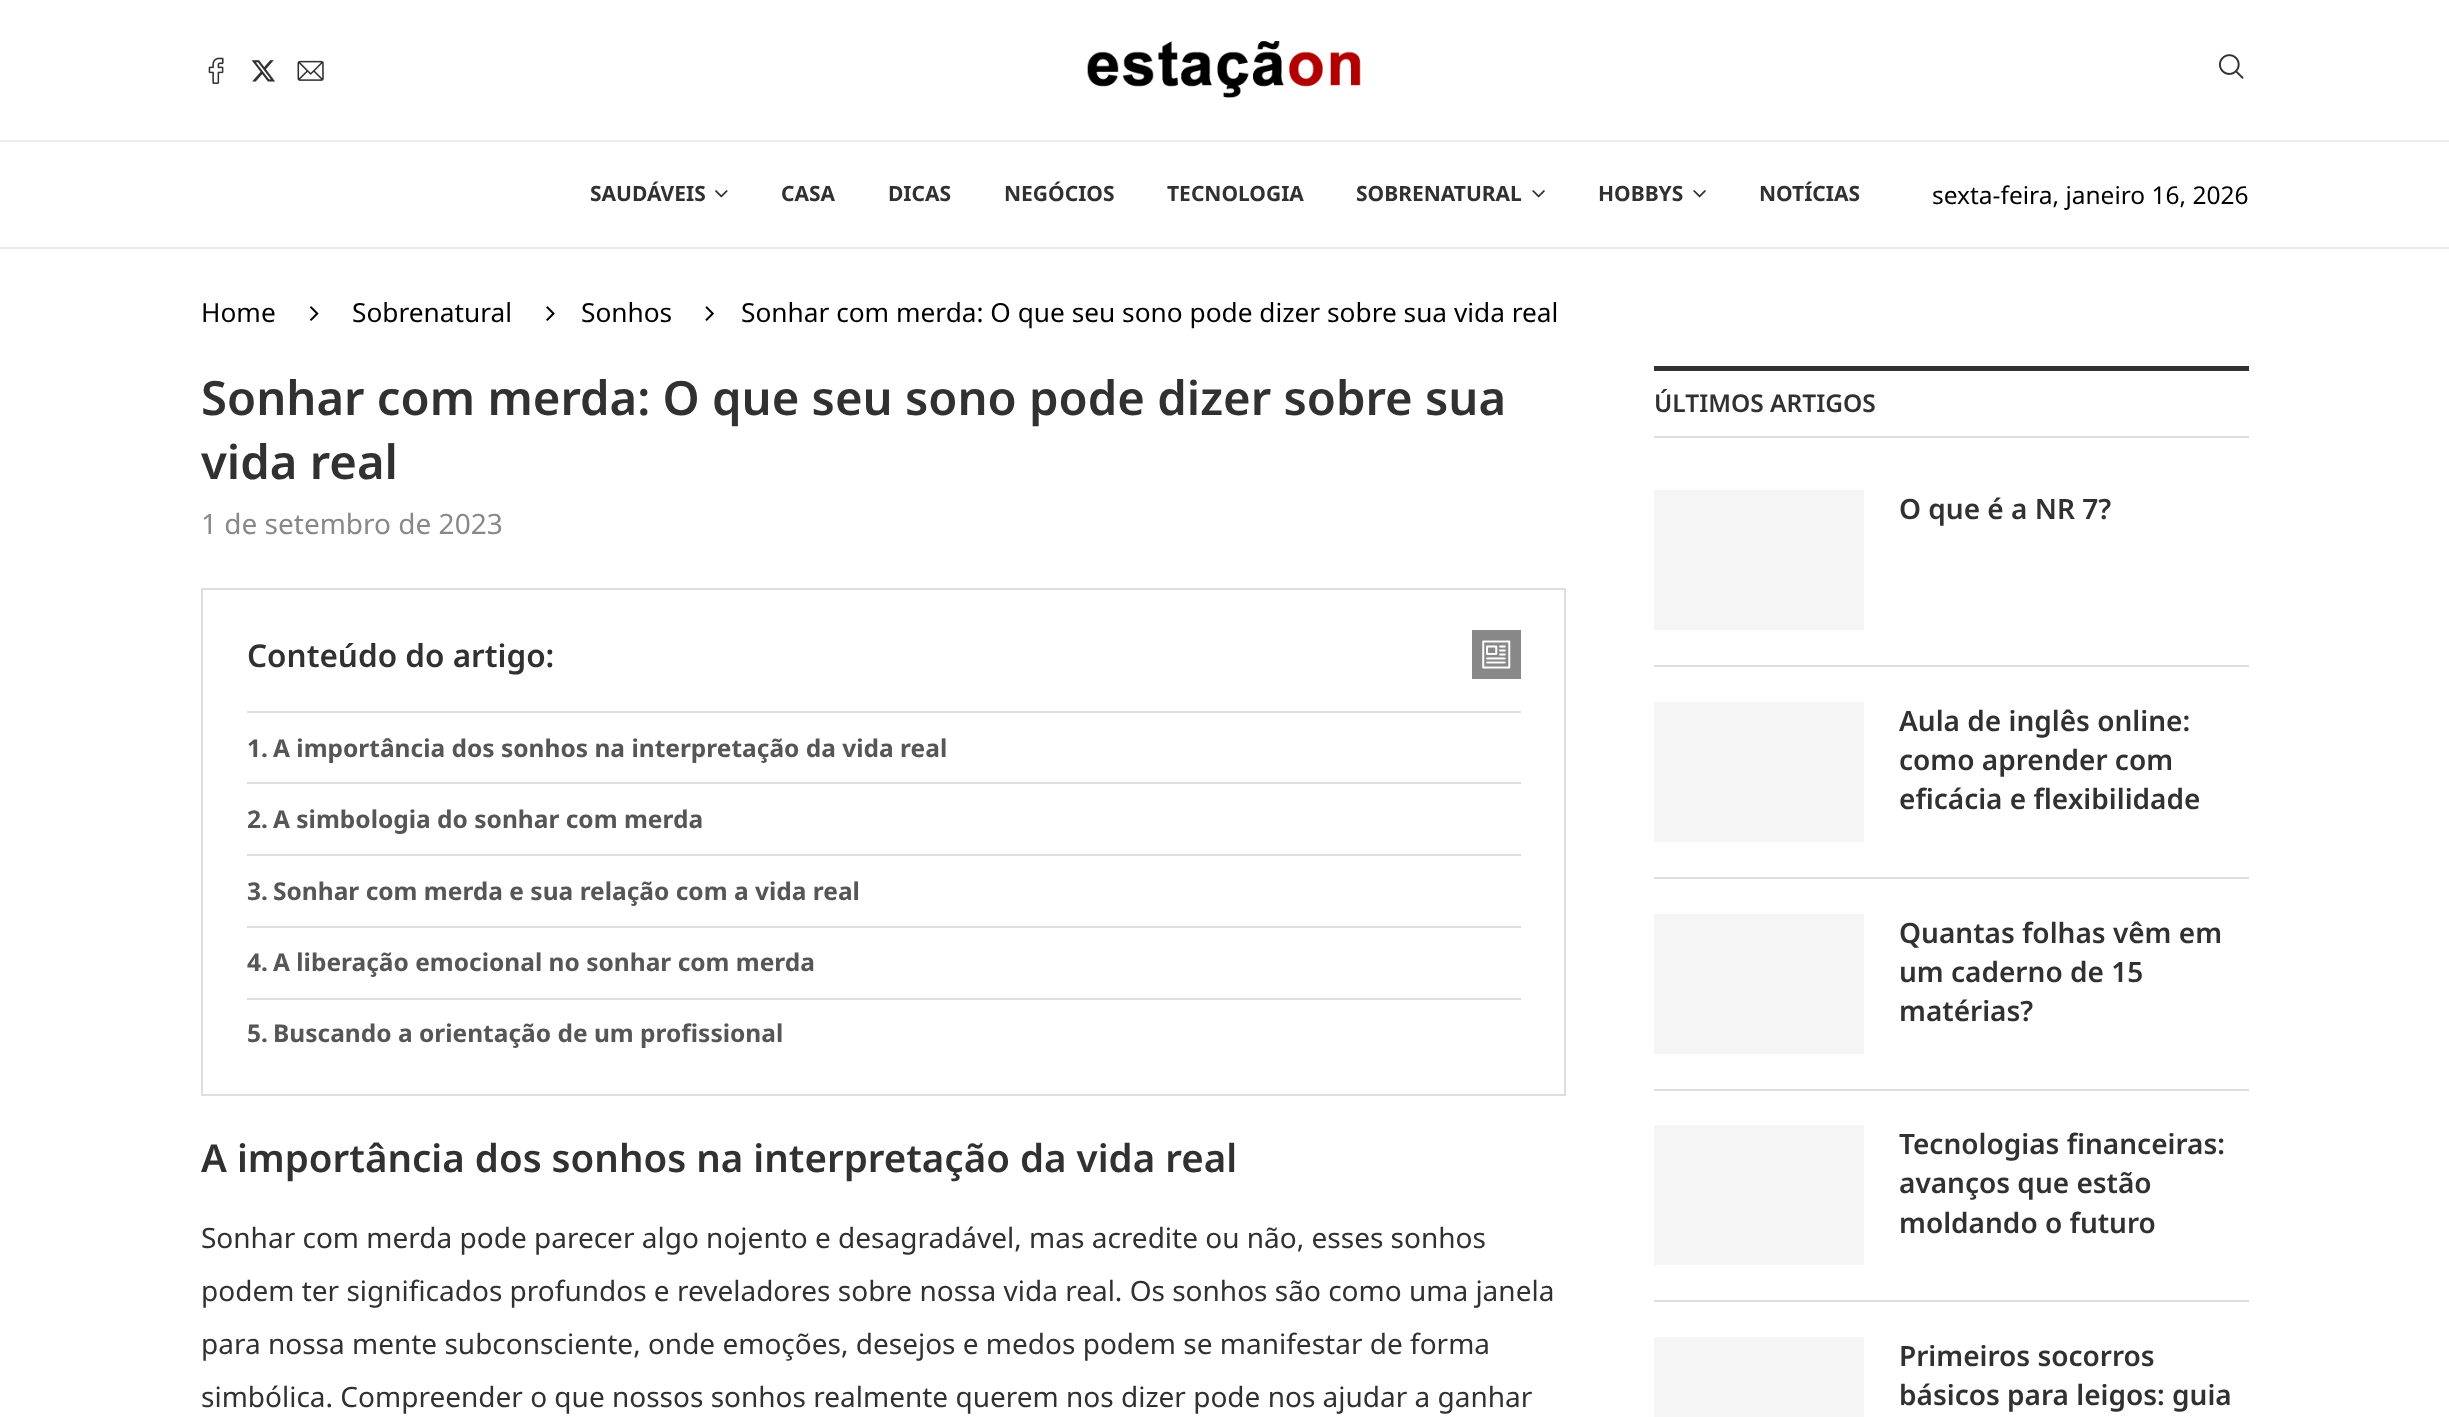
<svg xmlns="http://www.w3.org/2000/svg" width="2449" height="1417" viewBox="0 0 2449 1417">
  <rect width="100%" height="100%" fill="#ffffff"/>
  <image x="208" y="57" width="16" height="27" href="img1.png"/>
  <image x="251" y="60" width="24" height="22" href="img2.png"/>
  <image x="297" y="60" width="27" height="21" href="img3.png"/>
  <image x="1087" y="41" width="274" height="57" href="img4.png"/>
  <image x="2219" y="54" width="25" height="25" href="img5.png"/>
  <rect x="0" y="140" width="2449" height="2" fill="#ededed"/>
  <rect x="0" y="247" width="2449" height="2" fill="#ededed"/>
  <text x="590" y="201" font-family="Noto Sans" font-size="21" font-weight="bold" fill="#313131">SAUDÁVEIS</text>
  <image x="715" y="190" width="13" height="8" href="img6.png"/>
  <text x="781" y="201" font-family="Noto Sans" font-size="21" font-weight="bold" fill="#313131">CASA</text>
  <text x="888" y="201" font-family="Noto Sans" font-size="21" font-weight="bold" fill="#313131">DICAS</text>
  <text x="1004" y="201" font-family="Noto Sans" font-size="21" font-weight="bold" fill="#313131">NEGÓCIOS</text>
  <text x="1167" y="201" font-family="Noto Sans" font-size="21" font-weight="bold" fill="#313131">TECNOLOGIA</text>
  <text x="1356" y="201" font-family="Noto Sans" font-size="21" font-weight="bold" fill="#313131">SOBRENATURAL</text>
  <image x="1532" y="190" width="13" height="8" href="img7.png"/>
  <text x="1598" y="201" font-family="Noto Sans" font-size="21" font-weight="bold" fill="#313131">HOBBYS</text>
  <image x="1693" y="190" width="13" height="8" href="img7.png"/>
  <text x="1759" y="201" font-family="Noto Sans" font-size="21" font-weight="bold" fill="#313131">NOTÍCIAS</text>
  <text x="1932" y="204" font-family="Noto Sans" font-size="24.5" fill="#000000">sexta-feira, janeiro 16, 2026</text>
  <text x="201" y="322" font-family="Noto Sans" font-size="26.25" fill="#000000">Home</text>
  <image x="310" y="306" width="9" height="15" href="img8.png"/>
  <text x="352" y="322" font-family="Noto Sans" font-size="26.25" fill="#000000">Sobrenatural</text>
  <image x="546" y="306" width="9" height="15" href="img9.png"/>
  <text x="581" y="322" font-family="Noto Sans" font-size="26.25" fill="#000000">Sonhos</text>
  <image x="705" y="306" width="9" height="15" href="img10.png"/>
  <text x="741" y="322" font-family="Noto Sans" font-size="26.25" fill="#000000">Sonhar com merda: O que seu sono pode dizer sobre sua vida real</text>
  <text x="201" y="415" font-family="Noto Sans" font-size="47.25" font-weight="600" fill="#313131">Sonhar com merda: O que seu sono pode dizer sobre sua</text>
  <text x="201" y="479" font-family="Noto Sans" font-size="47.25" font-weight="600" fill="#313131">vida real</text>
  <text x="201" y="534" font-family="Noto Sans" font-size="28" fill="#888888">1 de setembro de 2023</text>
  <rect x="202" y="589" width="1363" height="506" fill="none" stroke="#dedede" stroke-width="2"/>
  <text x="247" y="667" font-family="Noto Sans" font-size="31.5" font-weight="600" fill="#313131">Conteúdo do artigo:</text>
  <rect x="1472" y="630" width="49" height="49" fill="#888888"/>
  <image x="1482" y="640" width="29" height="29" href="img11.png"/>
  <rect x="247" y="711" width="1274" height="2" fill="#dedede"/>
  <text x="247" y="757" font-family="Noto Sans" font-size="24.5" font-weight="bold" fill="#565656">1.</text>
  <text x="273" y="757" font-family="Noto Sans" font-size="24.5" font-weight="bold" fill="#565656">A importância dos sonhos na interpretação da vida real</text>
  <rect x="247" y="782" width="1274" height="2" fill="#dedede"/>
  <text x="247" y="828" font-family="Noto Sans" font-size="24.5" font-weight="bold" fill="#565656">2.</text>
  <text x="273" y="828" font-family="Noto Sans" font-size="24.5" font-weight="bold" fill="#565656">A simbologia do sonhar com merda</text>
  <rect x="247" y="854" width="1274" height="2" fill="#dedede"/>
  <text x="247" y="900" font-family="Noto Sans" font-size="24.5" font-weight="bold" fill="#565656">3.</text>
  <text x="273" y="900" font-family="Noto Sans" font-size="24.5" font-weight="bold" fill="#565656">Sonhar com merda e sua relação com a vida real</text>
  <rect x="247" y="926" width="1274" height="2" fill="#dedede"/>
  <text x="247" y="971" font-family="Noto Sans" font-size="24.5" font-weight="bold" fill="#565656">4.</text>
  <text x="273" y="971" font-family="Noto Sans" font-size="24.5" font-weight="bold" fill="#565656">A liberação emocional no sonhar com merda</text>
  <rect x="247" y="998" width="1274" height="2" fill="#dedede"/>
  <text x="247" y="1042" font-family="Noto Sans" font-size="24.5" font-weight="bold" fill="#565656">5.</text>
  <text x="273" y="1042" font-family="Noto Sans" font-size="24.5" font-weight="bold" fill="#565656">Buscando a orientação de um profissional</text>
  <text x="201" y="1172" font-family="Noto Sans" font-size="38.5" font-weight="600" fill="#313131">A importância dos sonhos na interpretação da vida real</text>
  <text x="201" y="1248" font-family="Noto Sans" font-size="28" fill="#313131">Sonhar com merda pode parecer algo nojento e desagradável, mas acredite ou não, esses sonhos</text>
  <text x="201" y="1301" font-family="Noto Sans" font-size="28" fill="#313131">podem ter significados profundos e reveladores sobre nossa vida real. Os sonhos são como uma janela</text>
  <text x="201" y="1354" font-family="Noto Sans" font-size="28" fill="#313131">para nossa mente subconsciente, onde emoções, desejos e medos podem se manifestar de forma</text>
  <text x="201" y="1407" font-family="Noto Sans" font-size="28" fill="#313131">simbólica. Compreender o que nossos sonhos realmente querem nos dizer pode nos ajudar a ganhar</text>
  <rect x="1654" y="366" width="595" height="5" fill="#313131"/>
  <rect x="1654" y="436" width="595" height="2" fill="#dedede"/>
  <text x="1654" y="412" font-family="Noto Sans" font-size="24.5" font-weight="600" fill="#313131">ÚLTIMOS ARTIGOS</text>
  <rect x="1654" y="665" width="595" height="2" fill="#dedede"/>
  <rect x="1654" y="490" width="210" height="140" fill="#f5f5f5"/>
  <text x="1899" y="519" font-family="Noto Sans" font-size="28" font-weight="600" fill="#313131">O que é a NR 7?</text>
  <rect x="1654" y="877" width="595" height="2" fill="#dedede"/>
  <rect x="1654" y="702" width="210" height="140" fill="#f5f5f5"/>
  <text x="1899" y="731" font-family="Noto Sans" font-size="28" font-weight="600" fill="#313131">Aula de inglês online:</text>
  <text x="1899" y="770" font-family="Noto Sans" font-size="28" font-weight="600" fill="#313131">como aprender com</text>
  <text x="1899" y="809" font-family="Noto Sans" font-size="28" font-weight="600" fill="#313131">eficácia e flexibilidade</text>
  <rect x="1654" y="1089" width="595" height="2" fill="#dedede"/>
  <rect x="1654" y="914" width="210" height="140" fill="#f5f5f5"/>
  <text x="1899" y="943" font-family="Noto Sans" font-size="28" font-weight="600" fill="#313131">Quantas folhas vêm em</text>
  <text x="1899" y="982" font-family="Noto Sans" font-size="28" font-weight="600" fill="#313131">um caderno de 15</text>
  <text x="1899" y="1021" font-family="Noto Sans" font-size="28" font-weight="600" fill="#313131">matérias?</text>
  <rect x="1654" y="1300" width="595" height="2" fill="#dedede"/>
  <rect x="1654" y="1125" width="210" height="140" fill="#f5f5f5"/>
  <text x="1899" y="1154" font-family="Noto Sans" font-size="28" font-weight="600" fill="#313131">Tecnologias financeiras:</text>
  <text x="1899" y="1193" font-family="Noto Sans" font-size="28" font-weight="600" fill="#313131">avanços que estão</text>
  <text x="1899" y="1233" font-family="Noto Sans" font-size="28" font-weight="600" fill="#313131">moldando o futuro</text>
  <rect x="1654" y="1337" width="210" height="80" fill="#f5f5f5"/>
  <text x="1899" y="1366" font-family="Noto Sans" font-size="28" font-weight="600" fill="#313131">Primeiros socorros</text>
  <text x="1899" y="1405" font-family="Noto Sans" font-size="28" font-weight="600" fill="#313131">básicos para leigos: guia</text>
</svg>
